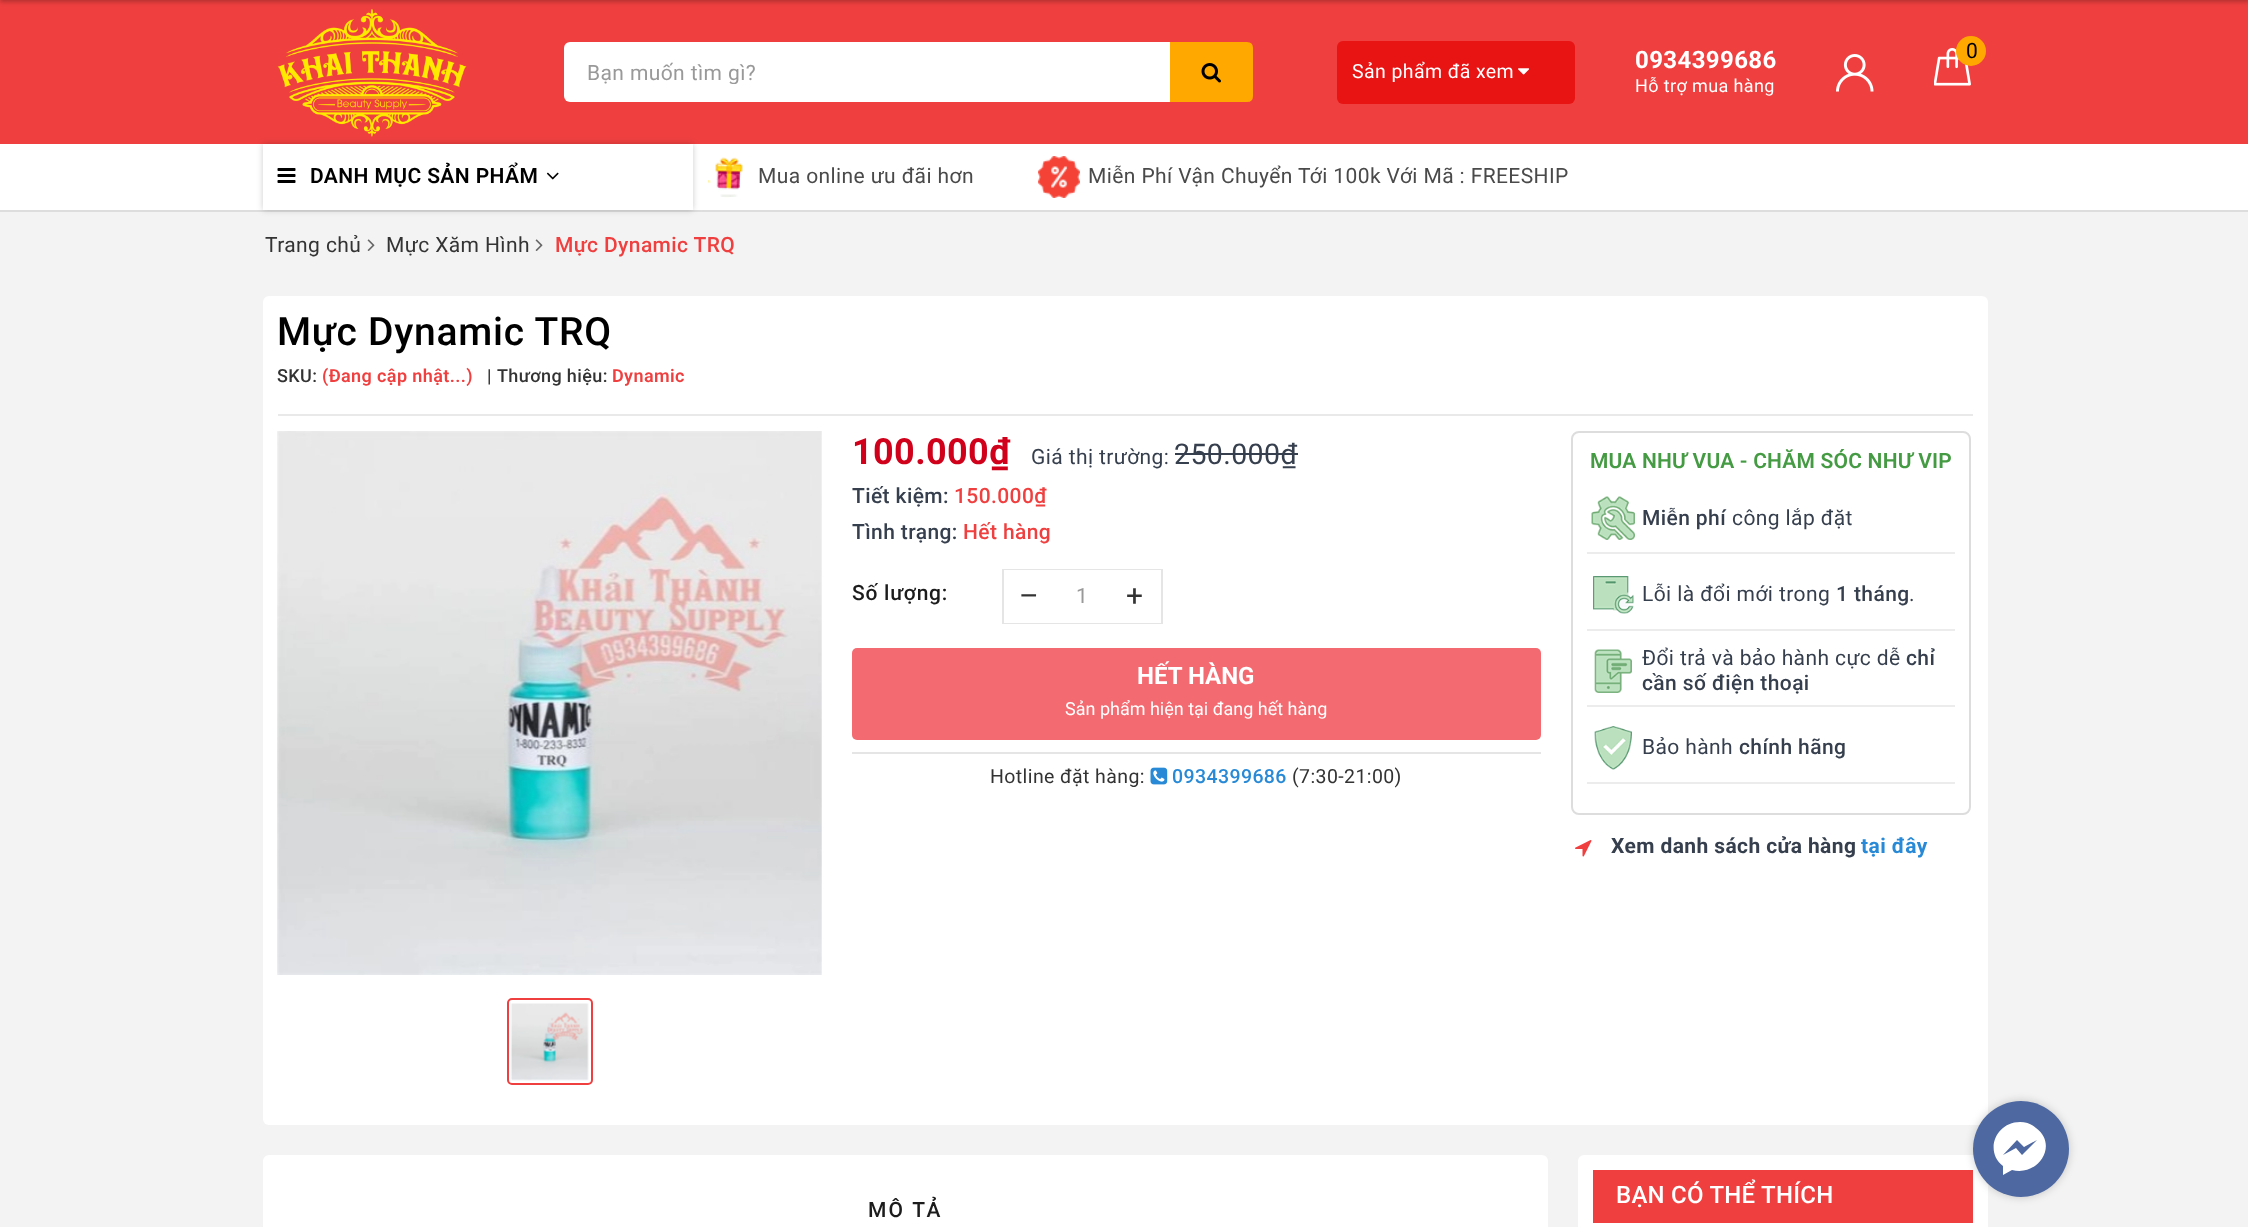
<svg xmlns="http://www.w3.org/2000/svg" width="2248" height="1227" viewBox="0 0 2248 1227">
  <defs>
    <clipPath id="clip1"><rect x="587" y="60" width="585" height="24"/></clipPath>
    <clipPath id="clip2"><path d="M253 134H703V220H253ZM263 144H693V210H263Z" clip-rule="evenodd"/></clipPath>
    <filter id="blur1" x="-50%" y="-200%" width="200%" height="500%"><feGaussianBlur stdDeviation="3"/></filter>
    <filter id="blur2" x="-50%" y="-200%" width="200%" height="500%"><feGaussianBlur stdDeviation="2"/></filter>
    <filter id="blur3" x="-50%" y="-200%" width="200%" height="500%"><feGaussianBlur stdDeviation="4"/></filter>
  </defs>
  <rect width="100%" height="100%" fill="#f3f3f3"/>
  <rect x="0" y="0" width="2248" height="144" fill="#ef3f3f"/>
  <image x="277" y="9" width="190" height="128" href="img1.png"/>
  <rect x="564" y="42" width="683" height="60" rx="6" fill="#ffffff"/>
  <g clip-path="url(#clip1)">
    <text x="587" y="80" font-family="Roboto" font-size="21" letter-spacing="0.4" fill="#999999">Bạn muốn tìm gì?</text>
  </g>
  <path d="M1171 43H1247C1250 43 1252 45 1252 48V96C1252 99 1250 101 1247 101H1171Z" fill="#ffa800" stroke="#ffa800" stroke-width="2"/>
  <image x="1201" y="63" width="20" height="20" href="img2.png"/>
  <rect x="1337" y="41" width="238" height="63" rx="6" fill="#e81313"/>
  <text x="1352" y="78" font-family="Roboto" font-size="19.5" letter-spacing="0.4" fill="#ffffff">Sản phẩm đã xem</text>
  <image x="1518" y="68" width="12" height="7" href="img3.png"/>
  <text x="1635" y="68" font-family="Roboto" font-size="24" font-weight="bold" letter-spacing="0.4" fill="#ffffff">0934399686</text>
  <text x="1635" y="92" font-family="Roboto" font-size="18" letter-spacing="0.4" fill="#ffffff">Hỗ trợ mua hàng</text>
  <image x="1836" y="54" width="38" height="38" href="img4.png"/>
  <image x="1934" y="48" width="37" height="38" href="img5.png"/>
  <circle cx="1971" cy="51" r="15" fill="#ffa800"/>
  <text x="1966" y="58" font-family="Roboto" font-size="21" letter-spacing="0.4" fill="#000000">0</text>
  <rect x="0" y="144" width="2248" height="66" fill="#ffffff"/>
  <rect x="0" y="210" width="2248" height="2" fill="#dddddd"/>
  <g clip-path="url(#clip2)">
    <rect x="263" y="144" width="430" height="66" fill="#000000" fill-opacity="0.2" filter="url(#blur1)"/>
  </g>
  <image x="277" y="168" width="19" height="15" href="img6.png"/>
  <text x="310" y="183" font-family="Roboto" font-size="21" font-weight="600" letter-spacing="0.4" fill="#000000">DANH MỤC SẢN PHẨM</text>
  <image x="546" y="172" width="13" height="8" href="img7.png"/>
  <image x="708" y="157" width="35" height="41" href="img8.png"/>
  <text x="758" y="183" font-family="Roboto" font-size="21" letter-spacing="0.4" fill="#4a4a4a">Mua online ưu đãi hơn</text>
  <image x="1038" y="156" width="42" height="42" href="img9.png"/>
  <text x="1088" y="183" font-family="Roboto" font-size="21" letter-spacing="0.4" fill="#4a4a4a">Miễn Phí Vận Chuyển Tới 100k Với Mã : FREESHIP</text>
  <rect x="0" y="-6" width="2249" height="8" fill="#000000" fill-opacity="0.25" filter="url(#blur2)"/>
  <text x="265" y="252" font-family="Roboto" font-size="21" letter-spacing="0.4" fill="#333333">Trang chủ</text>
  <image x="367" y="239" width="8" height="12" href="img10.png"/>
  <text x="386" y="252" font-family="Roboto" font-size="21" letter-spacing="0.4" fill="#333333">Mực Xăm Hình</text>
  <image x="535" y="239" width="8" height="12" href="img10.png"/>
  <text x="555" y="252" font-family="Roboto" font-size="21" font-weight="500" letter-spacing="0.4" fill="#ef3f3f">Mực Dynamic TRQ</text>
  <rect x="263" y="296" width="1725" height="829" rx="6" fill="#ffffff"/>
  <rect x="278" y="414" width="1695" height="2" fill="#e9e9e9"/>
  <text x="277" y="345" font-family="Roboto" font-size="39" font-weight="500" letter-spacing="0.75" fill="#000000">Mực Dynamic TRQ</text>
  <text x="277" y="382" font-family="Roboto" font-size="18" font-weight="500" letter-spacing="0.4" fill="#333333">SKU:</text>
  <text x="322" y="382" font-family="Roboto" font-size="18" font-weight="600" letter-spacing="0.4" fill="#ef3f3f">(Đang cập nhật...)</text>
  <text x="487" y="382" font-family="Roboto" font-size="18" font-weight="500" letter-spacing="0.4" fill="#333333">|</text>
  <text x="497" y="382" font-family="Roboto" font-size="18" font-weight="500" letter-spacing="0.4" fill="#333333">Thương hiệu:</text>
  <text x="612" y="382" font-family="Roboto" font-size="18" font-weight="600" letter-spacing="0.4" fill="#ef3f3f">Dynamic</text>
  <image x="277" y="431" width="545" height="544" href="img11.png"/>
  <rect x="508" y="999" width="84" height="85" rx="4" fill="none" stroke="#ef3f3f" stroke-width="2"/>
  <image x="511" y="1003" width="78" height="78" href="img12.png"/>
  <text x="852" y="464" font-family="Roboto" font-size="36" font-weight="bold" letter-spacing="0.4" fill="#d0021b">100.000₫</text>
  <text x="1031" y="464" font-family="Roboto" font-size="21" letter-spacing="0.4" fill="#363f4d">Giá thị trường:</text>
  <text x="1174" y="464" font-family="Roboto" font-size="28.5" letter-spacing="0.4" fill="#363f4d">250.000₫</text>
  <rect x="1175" y="453" width="123" height="2" fill="#363f4d"/>
  <text x="852" y="503" font-family="Roboto" font-size="21" font-weight="500" letter-spacing="0.4" fill="#363f4d">Tiết kiệm:</text>
  <text x="954" y="503" font-family="Roboto" font-size="21" font-weight="500" letter-spacing="0.4" fill="#ef3f3f">150.000₫</text>
  <text x="852" y="539" font-family="Roboto" font-size="21" font-weight="500" letter-spacing="0.4" fill="#363f4d">Tình trạng:</text>
  <text x="963" y="539" font-family="Roboto" font-size="21" font-weight="500" letter-spacing="0.4" fill="#ef3f3f">Hết hàng</text>
  <text x="852" y="600" font-family="Roboto" font-size="21" font-weight="500" letter-spacing="0.75" fill="#1c1c1c">Số lượng:</text>
  <rect x="1003" y="570" width="159" height="53" fill="none" stroke="#e5e5e5" stroke-width="2"/>
  <rect x="1004" y="570" width="157" height="53" fill="#ffffff"/>
  <text x="1019" y="606" font-family="Roboto" font-size="30" letter-spacing="0.4" fill="#333333">–</text>
  <text x="1076" y="603" font-family="Roboto" font-size="21" letter-spacing="0.4" fill="#999999">1</text>
  <text x="1126" y="606" font-family="Roboto" font-size="30" letter-spacing="0.4" fill="#333333">+</text>
  <rect x="852" y="648" width="689" height="92" rx="5" fill="#f36b71"/>
  <text x="1137" y="684" font-family="Roboto" font-size="24" font-weight="bold" fill="#ffffff">HẾT HÀNG</text>
  <text x="1065" y="715" font-family="Roboto" font-size="18" fill="#ffffff">Sản phẩm hiện tại đang hết hàng</text>
  <rect x="852" y="752" width="689" height="2" fill="#e5e5e5"/>
  <text x="990" y="783" font-family="Roboto" font-size="19.5" letter-spacing="0.4" fill="#333333">Hotline đặt hàng:</text>
  <image x="1150" y="767" width="18" height="18" href="img13.png"/>
  <text x="1172" y="783" font-family="Roboto" font-size="19.5" font-weight="500" letter-spacing="0.4" fill="#288ad6">0934399686</text>
  <text x="1292" y="783" font-family="Roboto" font-size="19.5" letter-spacing="0.4" fill="#333333">(7:30-21:00)</text>
  <rect x="1572" y="432" width="398" height="382" rx="7" fill="none" stroke="#dddddd" stroke-width="2"/>
  <text x="1590" y="468" font-family="Roboto" font-size="21" font-weight="600" letter-spacing="0.2" fill="#459b43">MUA NHƯ VUA - CHĂM SÓC NHƯ VIP</text>
  <rect x="1587" y="552" width="368" height="2" fill="#ececec"/>
  <image x="1591" y="496" width="44" height="44" href="img14.png"/>
  <text x="1642" y="525" font-family="Roboto" font-size="21" font-weight="500" letter-spacing="0.4" fill="#363f4d">Miễn phí</text>
  <text x="1732" y="525" font-family="Roboto" font-size="21" letter-spacing="0.4" fill="#363f4d">công lắp đặt</text>
  <rect x="1587" y="629" width="368" height="2" fill="#ececec"/>
  <image x="1593" y="576" width="41" height="38" href="img15.png"/>
  <text x="1642" y="601" font-family="Roboto" font-size="21" letter-spacing="0.4" fill="#363f4d">Lỗi là đổi mới trong</text>
  <text x="1836" y="601" font-family="Roboto" font-size="21" font-weight="500" letter-spacing="0.4" fill="#363f4d">1 tháng</text>
  <text x="1909" y="601" font-family="Roboto" font-size="21" letter-spacing="0.4" fill="#363f4d">.</text>
  <rect x="1587" y="705" width="368" height="2" fill="#ececec"/>
  <image x="1594" y="649" width="38" height="44" href="img16.png"/>
  <text x="1642" y="665" font-family="Roboto" font-size="21" letter-spacing="0.4" fill="#363f4d">Đổi trả và bảo hành cực dễ</text>
  <text x="1906" y="665" font-family="Roboto" font-size="21" font-weight="500" letter-spacing="0.4" fill="#363f4d">chỉ</text>
  <text x="1642" y="690" font-family="Roboto" font-size="21" font-weight="500" letter-spacing="0.4" fill="#363f4d">cần số điện thoại</text>
  <rect x="1587" y="782" width="368" height="2" fill="#ececec"/>
  <image x="1594" y="726" width="38" height="44" href="img17.png"/>
  <text x="1642" y="754" font-family="Roboto" font-size="21" letter-spacing="0.4" fill="#363f4d">Bảo hành</text>
  <text x="1739" y="754" font-family="Roboto" font-size="21" font-weight="500" letter-spacing="0.4" fill="#363f4d">chính hãng</text>
  <image x="1575" y="840" width="17" height="17" href="img18.png"/>
  <text x="1611" y="853" font-family="Roboto" font-size="21" font-weight="bold" letter-spacing="0.4" fill="#363f4d">Xem danh sách cửa hàng</text>
  <text x="1861" y="853" font-family="Roboto" font-size="21" font-weight="bold" letter-spacing="0.4" fill="#288ad6">tại đây</text>
  <rect x="263" y="1155" width="1285" height="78" rx="6" fill="#ffffff"/>
  <text x="868" y="1217" font-family="Roboto" font-size="21" font-weight="500" letter-spacing="2.25" fill="#1c1c1c">MÔ TẢ</text>
  <rect x="1578" y="1155" width="410" height="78" rx="6" fill="#ffffff"/>
  <rect x="1593" y="1170" width="380" height="53" fill="#ef3f3f"/>
  <text x="1616" y="1203" font-family="Roboto" font-size="24" font-weight="500" letter-spacing="0.25" fill="#ffffff">BẠN CÓ THỂ THÍCH</text>
  <rect x="1973" y="1101" width="96" height="96" rx="48" fill="#000000" fill-opacity="0.2" filter="url(#blur3)"/>
  <circle cx="2021" cy="1149" r="48" fill="#4e69a2"/>
  <path d="M2020 1122C1996 1122 1984 1151 2003 1166V1175L2012 1170C2038 1177 2059 1145 2036 1128C2032 1124 2026 1122 2020 1122ZM2022 1155L2016 1148L2003 1155L2017 1140L2024 1147L2037 1140Z" fill="#ffffff"/>
</svg>
